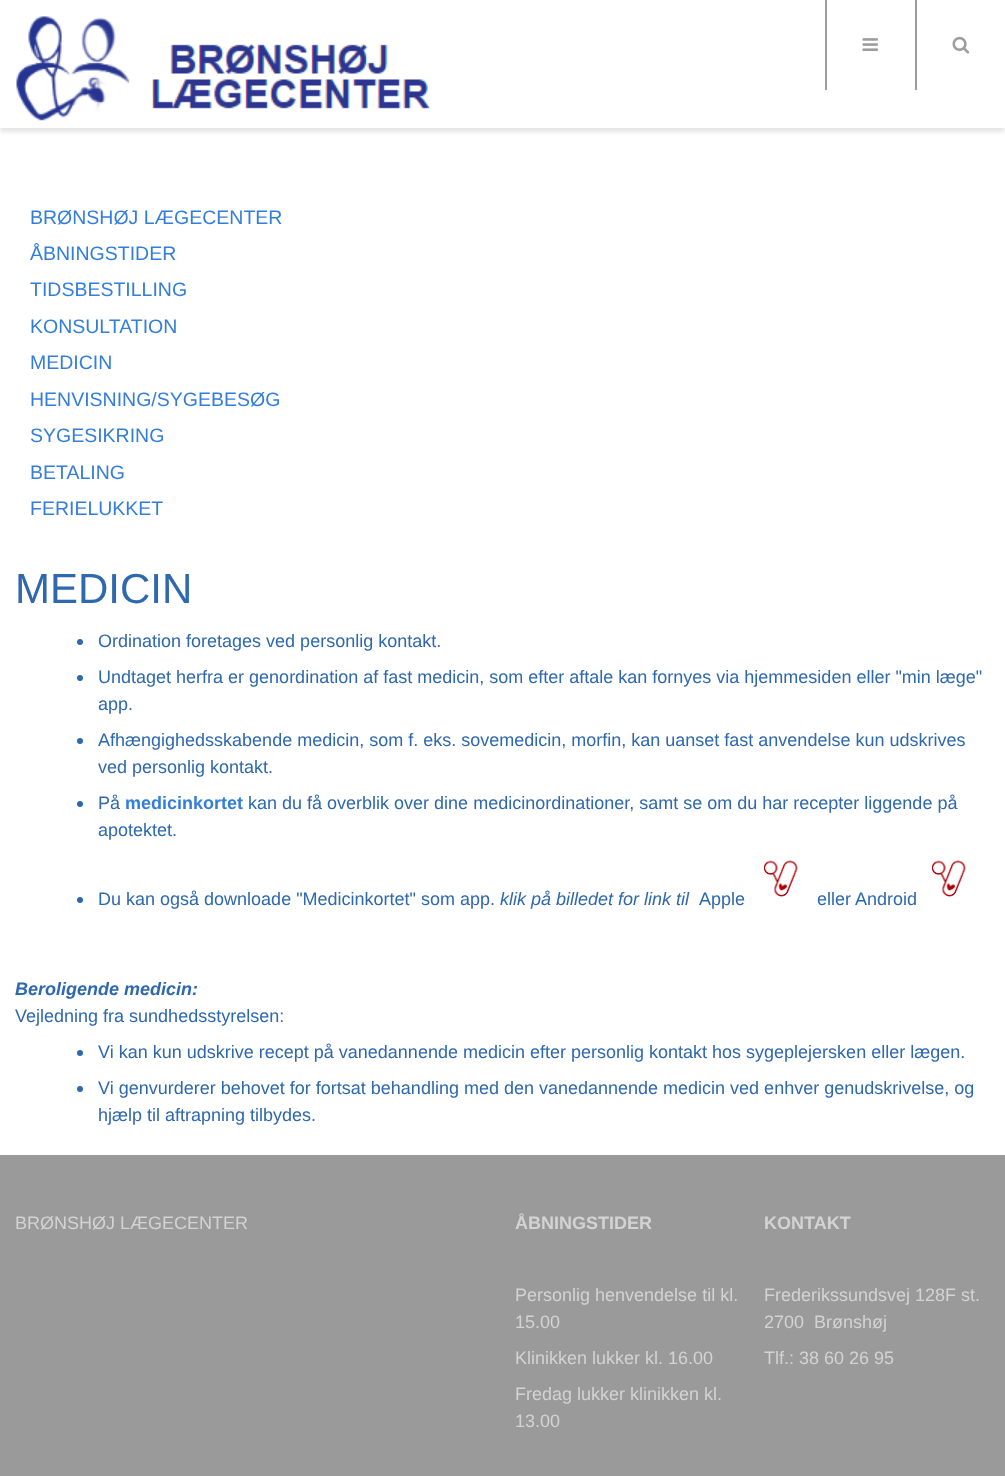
<svg xmlns="http://www.w3.org/2000/svg" width="1005" height="1476" viewBox="0 0 1005 1476">
  <defs>
    <filter id="blur1" x="-50%" y="-200%" width="200%" height="500%"><feGaussianBlur stdDeviation="2"/></filter>
  </defs>
  <rect width="100%" height="100%" fill="#ffffff"/>
  <rect x="0" y="5" width="1005" height="127" fill="#000000" fill-opacity="0.1" filter="url(#blur1)"/>
  <rect x="0" y="2" width="1005" height="126" fill="#ffffff"/>
  <image x="16" y="16" width="415" height="105" href="img1.png"/>
  <rect x="825" y="0" width="2" height="90" fill="#9d9d9d"/>
  <image x="862" y="38" width="16" height="13" href="img2.png"/>
  <rect x="915" y="0" width="2" height="90" fill="#9d9d9d"/>
  <image x="952" y="36" width="18" height="18" href="img3.png"/>
  <text x="30" y="224" font-family="Liberation Sans" font-size="19.5" fill="#337edb">BRØNSHØJ LÆGECENTER</text>
  <text x="30" y="260" font-family="Liberation Sans" font-size="19.5" fill="#337edb">ÅBNINGSTIDER</text>
  <text x="30" y="296" font-family="Liberation Sans" font-size="19.5" fill="#337edb">TIDSBESTILLING</text>
  <text x="30" y="333" font-family="Liberation Sans" font-size="19.5" fill="#337edb">KONSULTATION</text>
  <text x="30" y="369" font-family="Liberation Sans" font-size="19.5" fill="#337edb">MEDICIN</text>
  <text x="30" y="406" font-family="Liberation Sans" font-size="19.5" fill="#337edb">HENVISNING/SYGEBESØG</text>
  <text x="30" y="442" font-family="Liberation Sans" font-size="19.5" fill="#337edb">SYGESIKRING</text>
  <text x="30" y="479" font-family="Liberation Sans" font-size="19.5" fill="#337edb">BETALING</text>
  <text x="30" y="515" font-family="Liberation Sans" font-size="19.5" fill="#337edb">FERIELUKKET</text>
  <text x="15" y="603" font-family="Liberation Sans" font-size="42" fill="#2e68af">MEDICIN</text>
  <circle cx="80" cy="642" r="3" fill="#2e68af"/>
  <text x="98" y="647" font-family="Liberation Sans" font-size="18" fill="#2e68af">Ordination foretages ved personlig kontakt.</text>
  <circle cx="80" cy="678" r="3" fill="#2e68af"/>
  <text x="98" y="683" font-family="Liberation Sans" font-size="18" fill="#2e68af">Undtaget herfra er genordination af fast medicin, som efter aftale kan fornyes via hjemmesiden eller "min læge"</text>
  <text x="98" y="710" font-family="Liberation Sans" font-size="18" fill="#2e68af">app.</text>
  <circle cx="80" cy="741" r="3" fill="#2e68af"/>
  <text x="98" y="746" font-family="Liberation Sans" font-size="18" fill="#2e68af">Afhængighedsskabende medicin, som f. eks. sovemedicin, morfin, kan uanset fast anvendelse kun udskrives</text>
  <text x="98" y="773" font-family="Liberation Sans" font-size="18" fill="#2e68af">ved personlig kontakt.</text>
  <circle cx="80" cy="804" r="3" fill="#2e68af"/>
  <text x="98" y="809" font-family="Liberation Sans" font-size="18" fill="#2e68af">På</text>
  <text x="125" y="809" font-family="Liberation Sans" font-size="18" font-weight="bold" fill="#337edb">medicinkortet</text>
  <text x="248" y="809" font-family="Liberation Sans" font-size="18" fill="#2e68af">kan du få overblik over dine medicinordinationer, samt se om du har recepter liggende på</text>
  <text x="98" y="836" font-family="Liberation Sans" font-size="18" fill="#2e68af">apotektet.</text>
  <circle cx="80" cy="900" r="3" fill="#2e68af"/>
  <image x="762" y="860" width="36" height="37" href="img4.png"/>
  <image x="930" y="860" width="36" height="37" href="img4.png"/>
  <text x="98" y="905" font-family="Liberation Sans" font-size="18" fill="#2e68af">Du kan også downloade "Medicinkortet" som app.</text>
  <text x="500" y="905" font-family="Liberation Sans" font-size="18" font-style="italic" fill="#2e68af">klik på billedet for link til</text>
  <text x="699" y="905" font-family="Liberation Sans" font-size="18" fill="#2e68af">Apple</text>
  <text x="817" y="905" font-family="Liberation Sans" font-size="18" fill="#2e68af">eller Android</text>
  <text x="15" y="995" font-family="Liberation Sans" font-size="18" font-weight="bold" font-style="italic" fill="#2e68af">Beroligende medicin:</text>
  <text x="15" y="1022" font-family="Liberation Sans" font-size="18" fill="#2e68af">Vejledning fra sundhedsstyrelsen:</text>
  <circle cx="80" cy="1053" r="3" fill="#2e68af"/>
  <text x="98" y="1058" font-family="Liberation Sans" font-size="18" fill="#2e68af">Vi kan kun udskrive recept på vanedannende medicin efter personlig kontakt hos sygeplejersken eller lægen.</text>
  <circle cx="80" cy="1089" r="3" fill="#2e68af"/>
  <text x="98" y="1094" font-family="Liberation Sans" font-size="18" fill="#2e68af">Vi genvurderer behovet for fortsat behandling med den vanedannende medicin ved enhver genudskrivelse, og</text>
  <text x="98" y="1121" font-family="Liberation Sans" font-size="18" fill="#2e68af">hjælp til aftrapning tilbydes.</text>
  <rect x="0" y="1155" width="1005" height="321" fill="#9a9a9a"/>
  <text x="15" y="1229" font-family="Liberation Sans" font-size="18" fill="#d3d3d3">BRØNSHØJ LÆGECENTER</text>
  <text x="515" y="1229" font-family="Liberation Sans" font-size="18" font-weight="bold" fill="#d3d3d3">ÅBNINGSTIDER</text>
  <text x="515" y="1301" font-family="Liberation Sans" font-size="18" fill="#d3d3d3">Personlig henvendelse til kl.</text>
  <text x="515" y="1328" font-family="Liberation Sans" font-size="18" fill="#d3d3d3">15.00</text>
  <text x="515" y="1364" font-family="Liberation Sans" font-size="18" fill="#d3d3d3">Klinikken lukker kl. 16.00</text>
  <text x="515" y="1400" font-family="Liberation Sans" font-size="18" fill="#d3d3d3">Fredag lukker klinikken kl.</text>
  <text x="515" y="1427" font-family="Liberation Sans" font-size="18" fill="#d3d3d3">13.00</text>
  <text x="764" y="1229" font-family="Liberation Sans" font-size="18" font-weight="bold" fill="#d3d3d3">KONTAKT</text>
  <text x="764" y="1301" font-family="Liberation Sans" font-size="18" fill="#d3d3d3">Frederikssundsvej 128F st.</text>
  <text x="764" y="1328" font-family="Liberation Sans" font-size="18" fill="#d3d3d3" xml:space="preserve">2700  Brønshøj</text>
  <text x="764" y="1364" font-family="Liberation Sans" font-size="18" fill="#d3d3d3">Tlf.: 38 60 26 95</text>
</svg>
